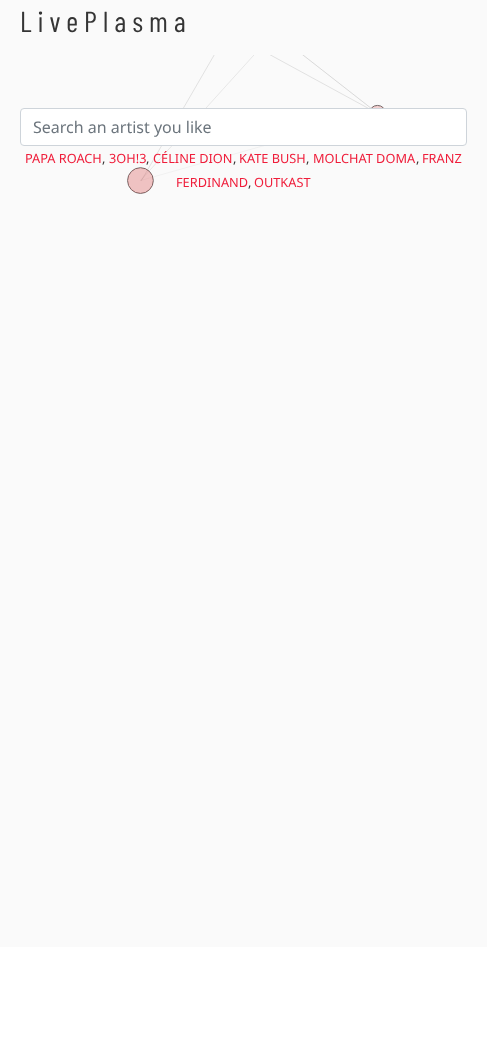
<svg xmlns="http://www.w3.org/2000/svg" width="487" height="1052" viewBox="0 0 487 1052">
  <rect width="100%" height="100%" fill="#fafafa"/>
  <text x="20" y="32" font-family="Barlow Condensed" font-size="29" letter-spacing="6" fill="#353535">LivePlasma</text>
  <image x="127" y="55" width="257" height="139" href="img1.png"/>
  <rect x="20.5" y="108.5" width="446" height="37" rx="3.5" fill="#ffffff" stroke="#ced4da"/>
  <text x="33" y="133" font-family="Noto Sans" font-size="16" fill="#6c757d">Search an artist you like</text>
  <text x="25" y="163" font-family="Noto Sans" font-size="12.75" fill="#ef1d3a">PAPA ROACH</text>
  <text x="102" y="163" font-family="Noto Sans" font-size="12.75" fill="#353535">,</text>
  <text x="109" y="163" font-family="Noto Sans" font-size="12.75" fill="#ef1d3a">3OH!3</text>
  <text x="146" y="163" font-family="Noto Sans" font-size="12.75" fill="#353535">,</text>
  <text x="153" y="163" font-family="Noto Sans" font-size="12.75" fill="#ef1d3a">CÉLINE DION</text>
  <text x="233" y="163" font-family="Noto Sans" font-size="12.75" fill="#353535">,</text>
  <text x="239" y="163" font-family="Noto Sans" font-size="12.75" fill="#ef1d3a">KATE BUSH</text>
  <text x="306" y="163" font-family="Noto Sans" font-size="12.75" fill="#353535">,</text>
  <text x="313" y="163" font-family="Noto Sans" font-size="12.75" fill="#ef1d3a">MOLCHAT DOMA</text>
  <text x="416" y="163" font-family="Noto Sans" font-size="12.75" fill="#353535">,</text>
  <text x="422" y="163" font-family="Noto Sans" font-size="12.75" fill="#ef1d3a">FRANZ</text>
  <text x="176" y="187" font-family="Noto Sans" font-size="12.75" fill="#ef1d3a">FERDINAND</text>
  <text x="248" y="187" font-family="Noto Sans" font-size="12.75" fill="#353535">,</text>
  <text x="254" y="187" font-family="Noto Sans" font-size="12.75" fill="#ef1d3a">OUTKAST</text>
  <rect x="0" y="947" width="487" height="105" fill="#ffffff"/>
</svg>
